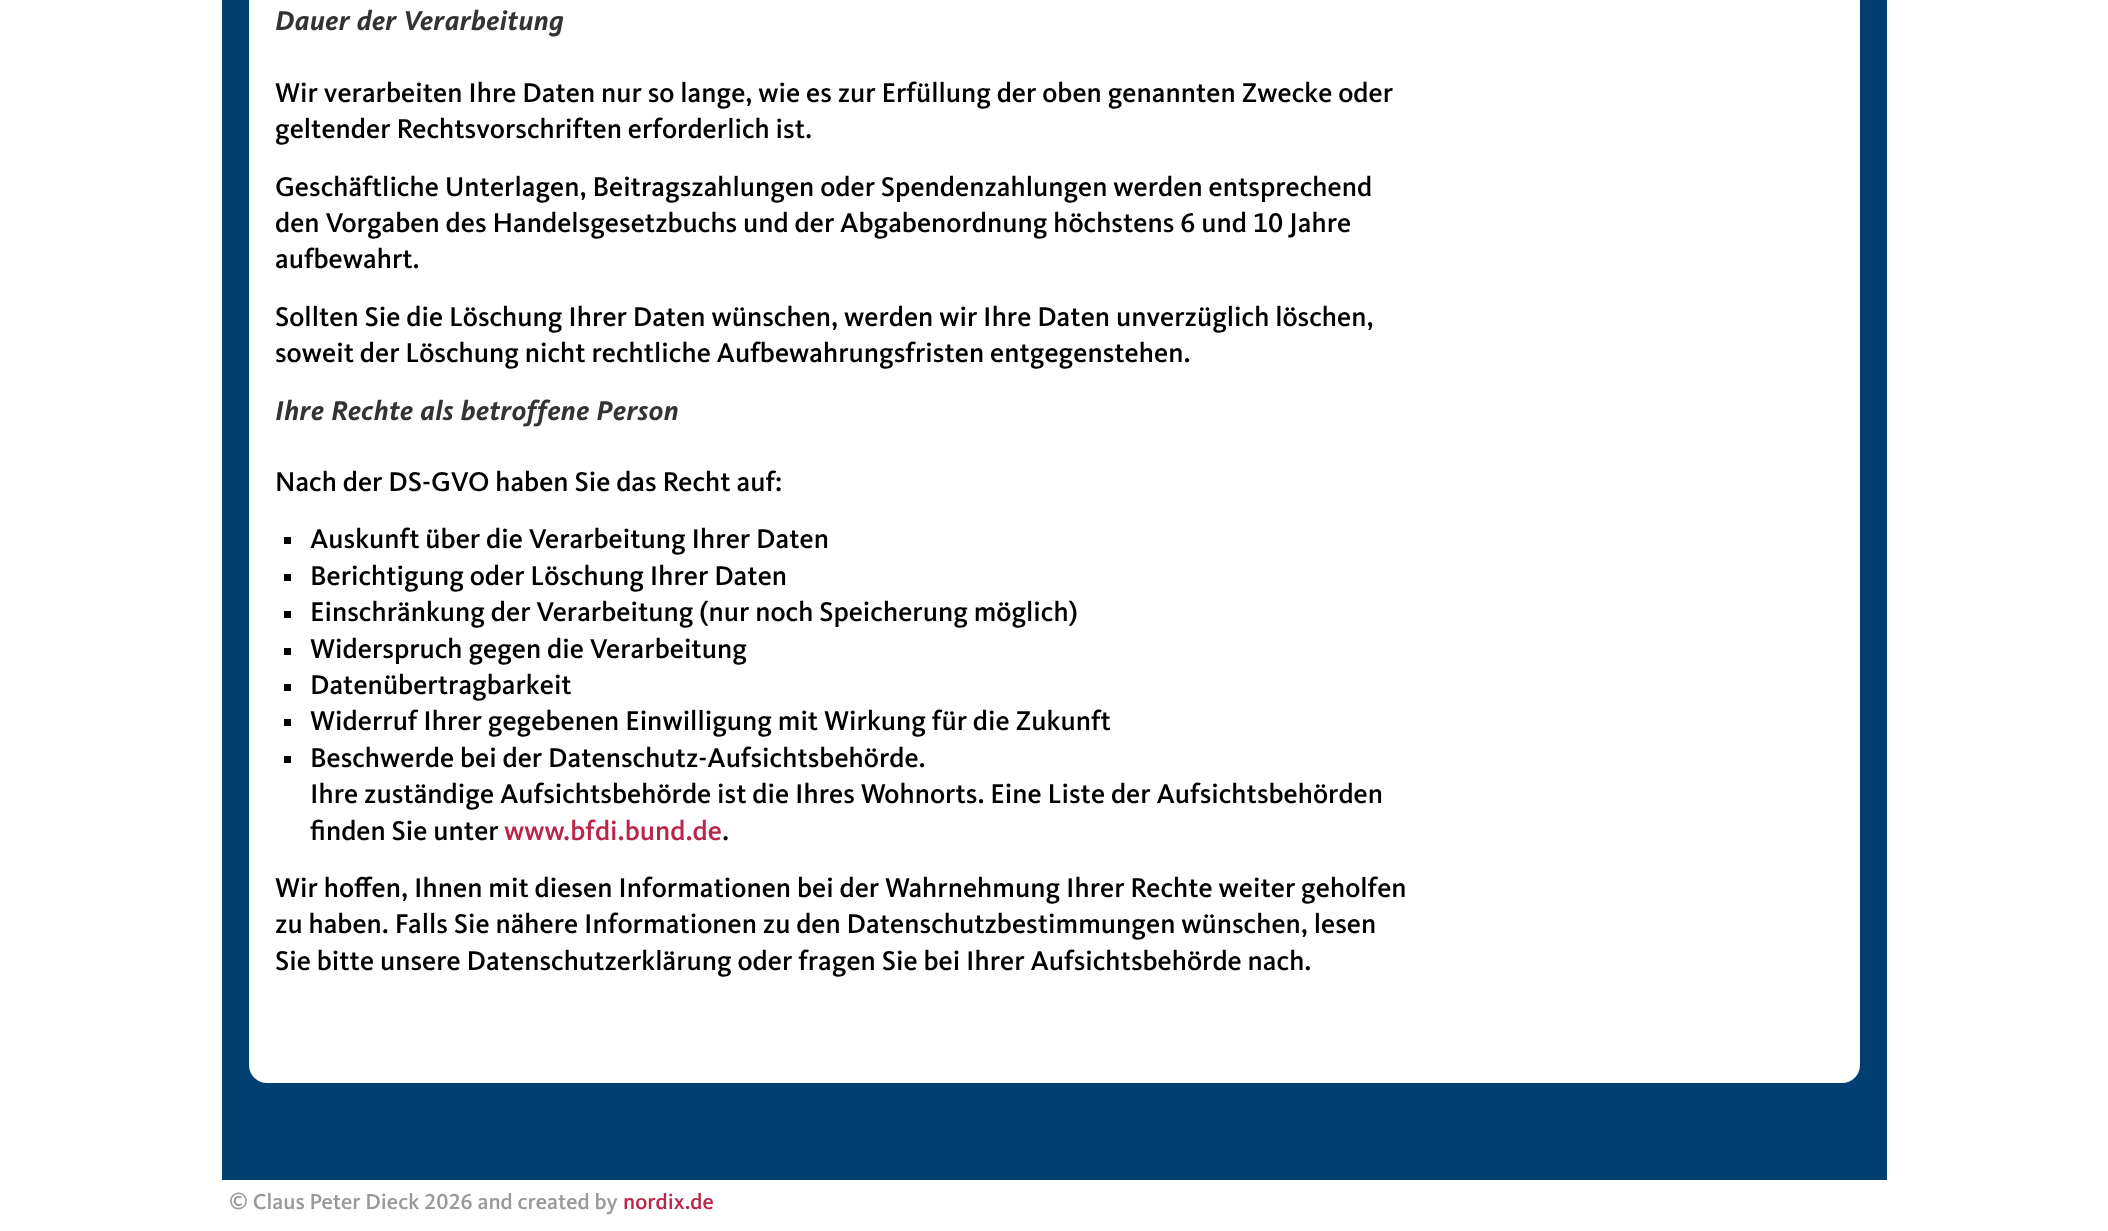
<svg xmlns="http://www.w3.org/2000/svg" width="2108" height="1231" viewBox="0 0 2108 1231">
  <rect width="100%" height="100%" fill="#ffffff"/>
  <rect x="222" y="0" width="1665" height="1180" fill="#003f6f"/>
  <rect x="249" y="-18" width="1611" height="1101" rx="18" fill="#ffffff"/>
  <text x="275" y="30" font-family="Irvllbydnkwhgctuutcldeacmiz" font-size="28" font-weight="bold" letter-spacing="0.5" fill="#333333">Dauer der Verarbeitung</text>
  <text x="275" y="102" font-family="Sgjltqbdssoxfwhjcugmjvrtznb" font-size="28" font-weight="500" fill="#000000">Wir verarbeiten Ihre Daten nur so lange, wie es zur Erfüllung der oben genannten Zwecke oder</text>
  <text x="275" y="138" font-family="Sgjltqbdssoxfwhjcugmjvrtznb" font-size="28" font-weight="500" fill="#000000">geltender Rechtsvorschriften erforderlich ist.</text>
  <text x="275" y="196" font-family="Sgjltqbdssoxfwhjcugmjvrtznb" font-size="28" font-weight="500" fill="#000000">Geschäftliche Unterlagen, Beitragszahlungen oder Spendenzahlungen werden entsprechend</text>
  <text x="275" y="232" font-family="Sgjltqbdssoxfwhjcugmjvrtznb" font-size="28" font-weight="500" fill="#000000">den Vorgaben des Handelsgesetzbuchs und der Abgabenordnung höchstens 6 und 10 Jahre</text>
  <text x="275" y="268" font-family="Sgjltqbdssoxfwhjcugmjvrtznb" font-size="28" font-weight="500" fill="#000000">aufbewahrt.</text>
  <text x="275" y="326" font-family="Sgjltqbdssoxfwhjcugmjvrtznb" font-size="28" font-weight="500" fill="#000000">Sollten Sie die Löschung Ihrer Daten wünschen, werden wir Ihre Daten unverzüglich löschen,</text>
  <text x="275" y="362" font-family="Sgjltqbdssoxfwhjcugmjvrtznb" font-size="28" font-weight="500" fill="#000000">soweit der Löschung nicht rechtliche Aufbewahrungsfristen entgegenstehen.</text>
  <text x="275" y="420" font-family="Irvllbydnkwhgctuutcldeacmiz" font-size="28" font-weight="bold" letter-spacing="0.5" fill="#333333">Ihre Rechte als betroffene Person</text>
  <text x="275" y="491" font-family="Sgjltqbdssoxfwhjcugmjvrtznb" font-size="28" font-weight="500" fill="#000000">Nach der DS-GVO haben Sie das Recht auf:</text>
  <rect x="284" y="537" width="7" height="7" fill="#000000"/>
  <text x="310" y="548" font-family="Sgjltqbdssoxfwhjcugmjvrtznb" font-size="28" font-weight="500" fill="#000000">Auskunft über die Verarbeitung Ihrer Daten</text>
  <rect x="284" y="574" width="7" height="7" fill="#000000"/>
  <text x="310" y="585" font-family="Sgjltqbdssoxfwhjcugmjvrtznb" font-size="28" font-weight="500" fill="#000000">Berichtigung oder Löschung Ihrer Daten</text>
  <rect x="284" y="611" width="7" height="7" fill="#000000"/>
  <text x="310" y="621" font-family="Sgjltqbdssoxfwhjcugmjvrtznb" font-size="28" font-weight="500" fill="#000000">Einschränkung der Verarbeitung (nur noch Speicherung möglich)</text>
  <rect x="284" y="648" width="7" height="7" fill="#000000"/>
  <text x="310" y="658" font-family="Sgjltqbdssoxfwhjcugmjvrtznb" font-size="28" font-weight="500" fill="#000000">Widerspruch gegen die Verarbeitung</text>
  <rect x="284" y="684" width="7" height="7" fill="#000000"/>
  <text x="310" y="694" font-family="Sgjltqbdssoxfwhjcugmjvrtznb" font-size="28" font-weight="500" fill="#000000">Datenübertragbarkeit</text>
  <rect x="284" y="719" width="7" height="7" fill="#000000"/>
  <text x="310" y="730" font-family="Sgjltqbdssoxfwhjcugmjvrtznb" font-size="28" font-weight="500" fill="#000000">Widerruf Ihrer gegebenen Einwilligung mit Wirkung für die Zukunft</text>
  <rect x="284" y="756" width="7" height="7" fill="#000000"/>
  <text x="310" y="767" font-family="Sgjltqbdssoxfwhjcugmjvrtznb" font-size="28" font-weight="500" fill="#000000">Beschwerde bei der Datenschutz-Aufsichtsbehörde.</text>
  <text x="310" y="803" font-family="Sgjltqbdssoxfwhjcugmjvrtznb" font-size="28" font-weight="500" fill="#000000">Ihre zuständige Aufsichtsbehörde ist die Ihres Wohnorts. Eine Liste der Aufsichtsbehörden</text>
  <text x="310" y="840" font-family="Sgjltqbdssoxfwhjcugmjvrtznb" font-size="28" font-weight="500" fill="#000000">finden Sie unter</text>
  <text x="504" y="840" font-family="Sgjltqbdssoxfwhjcugmjvrtznb" font-size="28" font-weight="500" fill="#bb2548">www.bfdi.bund.de</text>
  <text x="722" y="840" font-family="Sgjltqbdssoxfwhjcugmjvrtznb" font-size="28" font-weight="500" fill="#000000">.</text>
  <text x="275" y="897" font-family="Sgjltqbdssoxfwhjcugmjvrtznb" font-size="28" font-weight="500" fill="#000000">Wir hoffen, Ihnen mit diesen Informationen bei der Wahrnehmung Ihrer Rechte weiter geholfen</text>
  <text x="275" y="933" font-family="Sgjltqbdssoxfwhjcugmjvrtznb" font-size="28" font-weight="500" fill="#000000">zu haben. Falls Sie nähere Informationen zu den Datenschutzbestimmungen wünschen, lesen</text>
  <text x="275" y="970" font-family="Sgjltqbdssoxfwhjcugmjvrtznb" font-size="28" font-weight="500" fill="#000000">Sie bitte unsere Datenschutzerklärung oder fragen Sie bei Ihrer Aufsichtsbehörde nach.</text>
  <text x="229" y="1209" font-family="Sgjltqbdssoxfwhjcugmjvrtznb" font-size="22.4" font-weight="500" fill="#999999">© Claus Peter Dieck 2026 and created by</text>
  <text x="623" y="1209" font-family="Sgjltqbdssoxfwhjcugmjvrtznb" font-size="22.4" font-weight="500" fill="#bb2548">nordix.de</text>
</svg>
